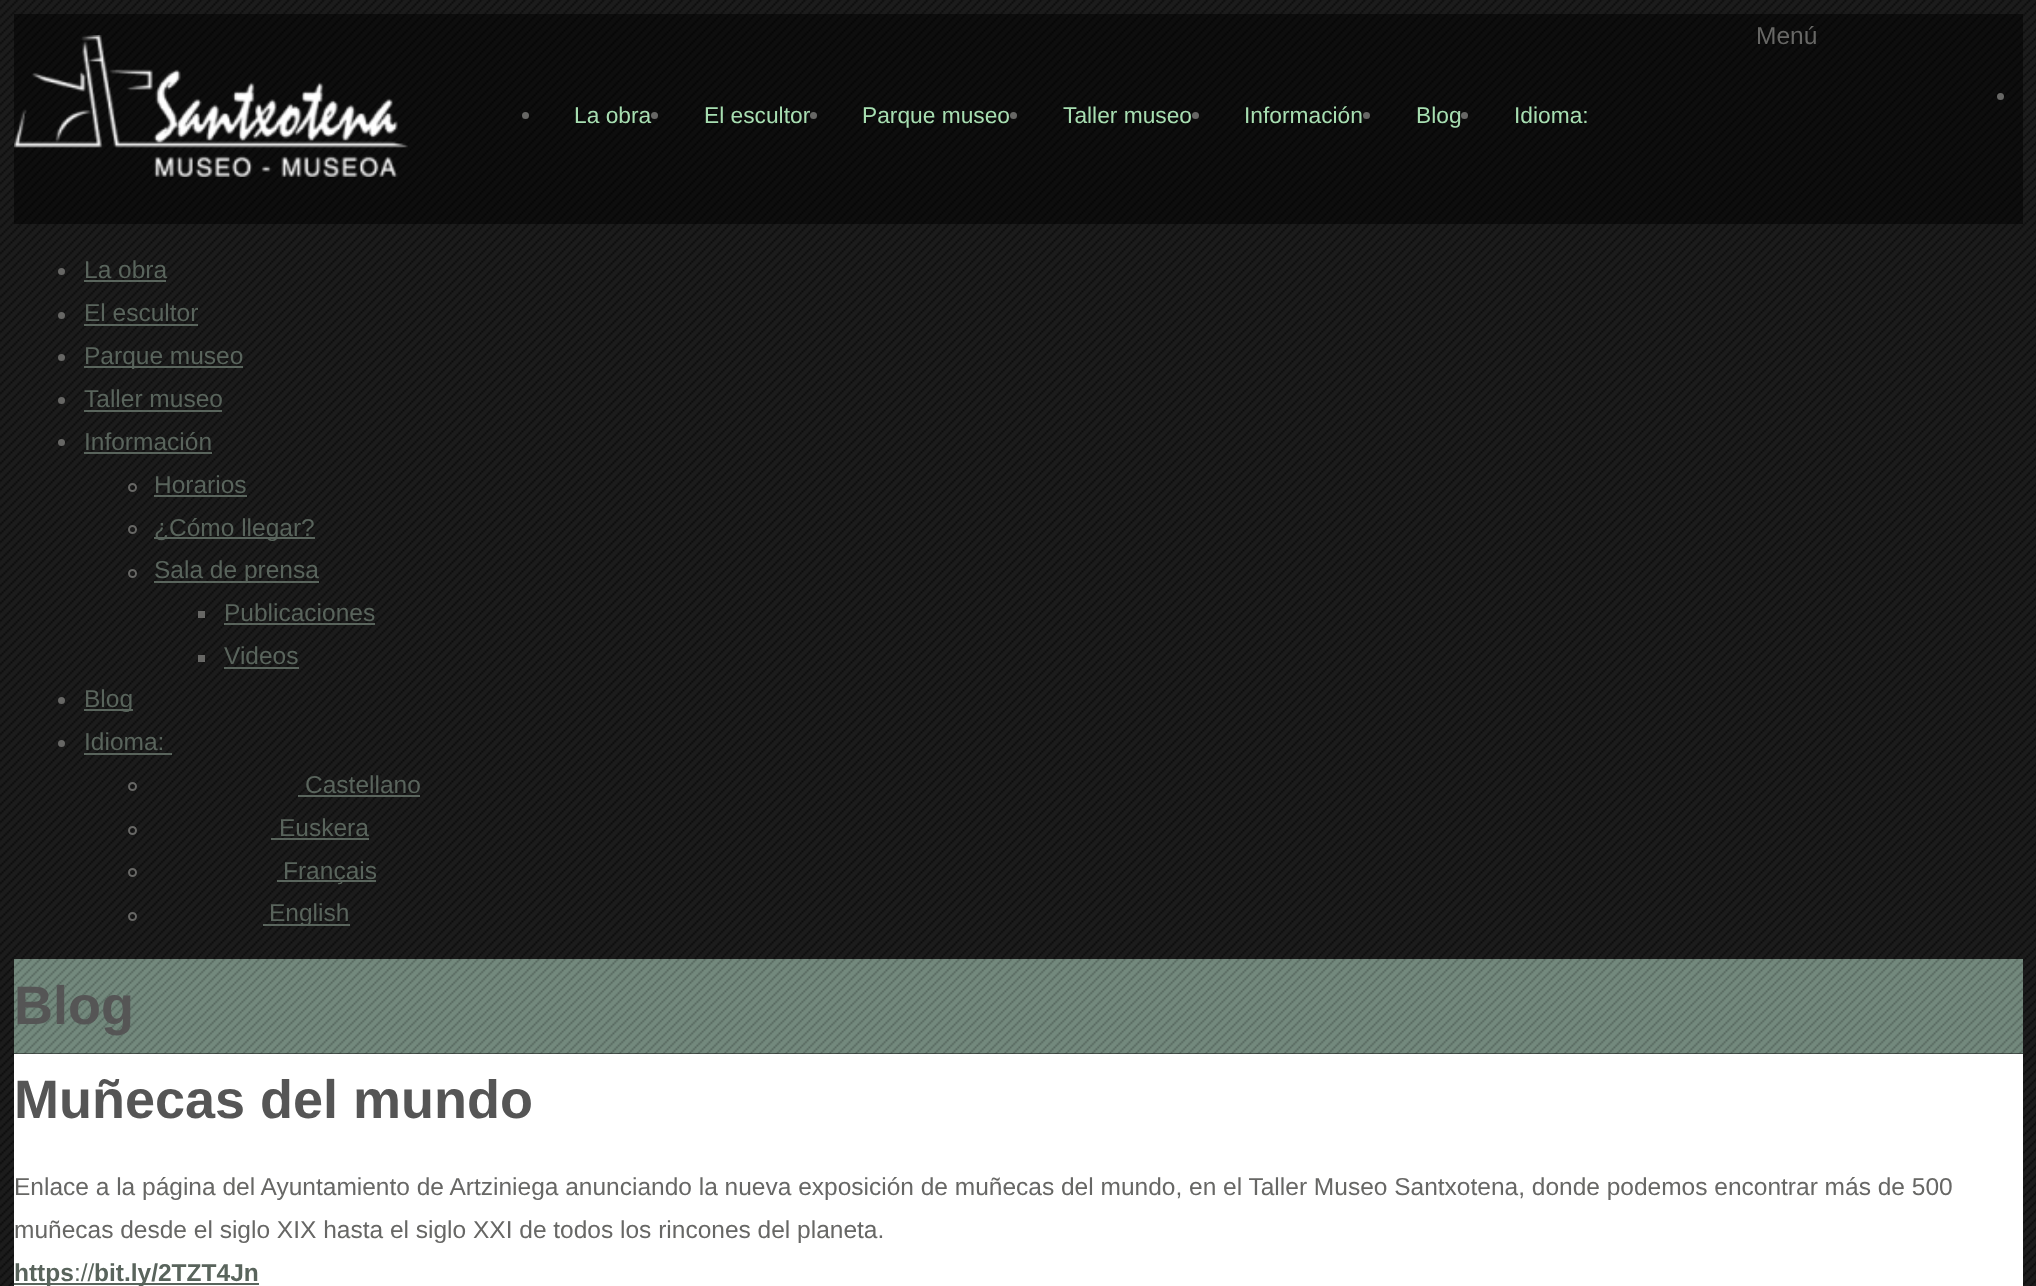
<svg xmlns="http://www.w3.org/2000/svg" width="2036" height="1286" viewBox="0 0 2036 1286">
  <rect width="100%" height="100%" fill="#ffffff"/>
  <image x="0" y="0" width="2036" height="1286" href="img1.png"/>
  <rect x="14" y="14" width="2009" height="210" fill="#000000" fill-opacity="0.5"/>
  <image x="14" y="35" width="394" height="142" href="img2.png"/>
  <text x="1756" y="44" font-family="Liberation Sans" font-size="24.5" fill="#676765">Menú</text>
  <circle cx="2000.5" cy="96.5" r="3.5" fill="#676765"/>
  <circle cx="525.5" cy="115.5" r="3.5" fill="#676765"/>
  <circle cx="654.5" cy="115.5" r="3.5" fill="#676765"/>
  <text x="574" y="123" font-family="Liberation Sans" font-size="22.75" fill="#a7deb1">La obra</text>
  <text x="704" y="123" font-family="Liberation Sans" font-size="22.75" fill="#a7deb1">El escultor</text>
  <circle cx="813.5" cy="115.5" r="3.5" fill="#676765"/>
  <text x="862" y="123" font-family="Liberation Sans" font-size="22.75" fill="#a7deb1">Parque museo</text>
  <circle cx="1013.5" cy="115.5" r="3.5" fill="#676765"/>
  <text x="1063" y="123" font-family="Liberation Sans" font-size="22.75" fill="#a7deb1">Taller museo</text>
  <circle cx="1195.5" cy="115.5" r="3.5" fill="#676765"/>
  <text x="1244" y="123" font-family="Liberation Sans" font-size="22.75" fill="#a7deb1">Información</text>
  <circle cx="1366.5" cy="115.5" r="3.5" fill="#676765"/>
  <text x="1416" y="123" font-family="Liberation Sans" font-size="22.75" fill="#a7deb1">Blog</text>
  <circle cx="1464.5" cy="115.5" r="3.5" fill="#676765"/>
  <text x="1514" y="123" font-family="Liberation Sans" font-size="22.75" fill="#a7deb1">Idioma:</text>
  <circle cx="61.5" cy="271.5" r="3.5" fill="#676765"/>
  <text x="84" y="278" font-family="Liberation Sans" font-size="24.5" fill="#59645c">La obra</text>
  <rect x="84" y="280" width="82" height="2" fill="#59645c"/>
  <circle cx="61.5" cy="315.5" r="3.5" fill="#676765"/>
  <text x="84" y="321" font-family="Liberation Sans" font-size="24.5" fill="#59645c">El escultor</text>
  <rect x="84" y="324" width="114" height="2" fill="#59645c"/>
  <circle cx="61.5" cy="357.5" r="3.5" fill="#676765"/>
  <rect x="84" y="366" width="159" height="2" fill="#59645c"/>
  <text x="84" y="364" font-family="Liberation Sans" font-size="24.5" fill="#59645c">Parque museo</text>
  <circle cx="61.5" cy="400.5" r="3.5" fill="#676765"/>
  <text x="84" y="407" font-family="Liberation Sans" font-size="24.5" fill="#59645c">Taller museo</text>
  <rect x="84" y="410" width="138" height="2" fill="#59645c"/>
  <circle cx="61.5" cy="442.5" r="3.5" fill="#676765"/>
  <text x="84" y="450" font-family="Liberation Sans" font-size="24.5" fill="#59645c">Información</text>
  <rect x="84" y="452" width="128" height="2" fill="#59645c"/>
  <circle cx="132.5" cy="487.5" r="3.5" fill="none" stroke="#676765" stroke-width="2"/>
  <text x="154" y="493" font-family="Liberation Sans" font-size="24.5" fill="#59645c">Horarios</text>
  <rect x="154" y="495" width="93" height="2" fill="#59645c"/>
  <circle cx="132.5" cy="529.5" r="3.5" fill="none" stroke="#676765" stroke-width="2"/>
  <rect x="154" y="537" width="161" height="2" fill="#59645c"/>
  <text x="154" y="536" font-family="Liberation Sans" font-size="24.5" fill="#59645c">¿Cómo llegar?</text>
  <circle cx="132.5" cy="573.5" r="3.5" fill="none" stroke="#676765" stroke-width="2"/>
  <rect x="154" y="581" width="165" height="2" fill="#59645c"/>
  <text x="154" y="578" font-family="Liberation Sans" font-size="24.5" fill="#59645c">Sala de prensa</text>
  <rect x="198" y="611" width="7" height="7" fill="#676765"/>
  <text x="224" y="621" font-family="Liberation Sans" font-size="24.5" fill="#59645c">Publicaciones</text>
  <rect x="224" y="623" width="151" height="2" fill="#59645c"/>
  <rect x="198" y="655" width="7" height="7" fill="#676765"/>
  <text x="224" y="664" font-family="Liberation Sans" font-size="24.5" fill="#59645c">Videos</text>
  <rect x="224" y="667" width="75" height="2" fill="#59645c"/>
  <circle cx="61.5" cy="700.5" r="3.5" fill="#676765"/>
  <rect x="84" y="709" width="49" height="2" fill="#59645c"/>
  <text x="84" y="707" font-family="Liberation Sans" font-size="24.5" fill="#59645c">Blog</text>
  <circle cx="61.5" cy="743.5" r="3.5" fill="#676765"/>
  <text x="84" y="750" font-family="Liberation Sans" font-size="24.5" fill="#59645c">Idioma:</text>
  <rect x="84" y="753" width="88" height="2" fill="#59645c"/>
  <circle cx="132.5" cy="786.5" r="3.5" fill="none" stroke="#676765" stroke-width="2"/>
  <text x="305" y="793" font-family="Liberation Sans" font-size="24.5" fill="#59645c">Castellano</text>
  <rect x="298" y="795" width="122" height="2" fill="#59645c"/>
  <circle cx="132.5" cy="830.5" r="3.5" fill="none" stroke="#676765" stroke-width="2"/>
  <text x="279" y="836" font-family="Liberation Sans" font-size="24.5" fill="#59645c">Euskera</text>
  <rect x="271" y="838" width="98" height="2" fill="#59645c"/>
  <circle cx="132.5" cy="872.5" r="3.5" fill="none" stroke="#676765" stroke-width="2"/>
  <rect x="277" y="880" width="99" height="2" fill="#59645c"/>
  <text x="283" y="879" font-family="Liberation Sans" font-size="24.5" fill="#59645c">Français</text>
  <circle cx="132.5" cy="916.5" r="3.5" fill="none" stroke="#676765" stroke-width="2"/>
  <rect x="263" y="924" width="87" height="2" fill="#59645c"/>
  <text x="269" y="921" font-family="Liberation Sans" font-size="24.5" fill="#59645c">English</text>
  <image x="14" y="959" width="2009" height="95" href="img3.png"/>
  <text x="14" y="1024" font-family="Liberation Sans" font-size="54" font-weight="bold" fill="#555555">Blog</text>
  <rect x="14" y="1054" width="2009" height="232" fill="#ffffff"/>
  <text x="14" y="1118" font-family="Liberation Sans" font-size="54" font-weight="bold" fill="#555555">Muñecas del mundo</text>
  <text x="14" y="1195" font-family="Liberation Sans" font-size="24.5" fill="#676765">Enlace a la página del Ayuntamiento de Artziniega anunciando la nueva exposición de muñecas del mundo, en el Taller Museo Santxotena, donde podemos encontrar más de 500</text>
  <text x="14" y="1238" font-family="Liberation Sans" font-size="24.5" fill="#676765">muñecas desde el siglo XIX hasta el siglo XXI de todos los rincones del planeta.</text>
  <rect x="14" y="1283" width="245" height="2" fill="#59645c"/>
  <text x="14" y="1281" font-family="Liberation Sans" font-size="24.5" font-weight="bold" fill="#59645c">https</text>
  <text x="74" y="1281" font-family="Liberation Sans" font-size="24.5" fill="#59645c">://</text>
  <text x="94" y="1281" font-family="Liberation Sans" font-size="24.5" font-weight="bold" fill="#59645c">bit.ly/2TZT4Jn</text>
</svg>
